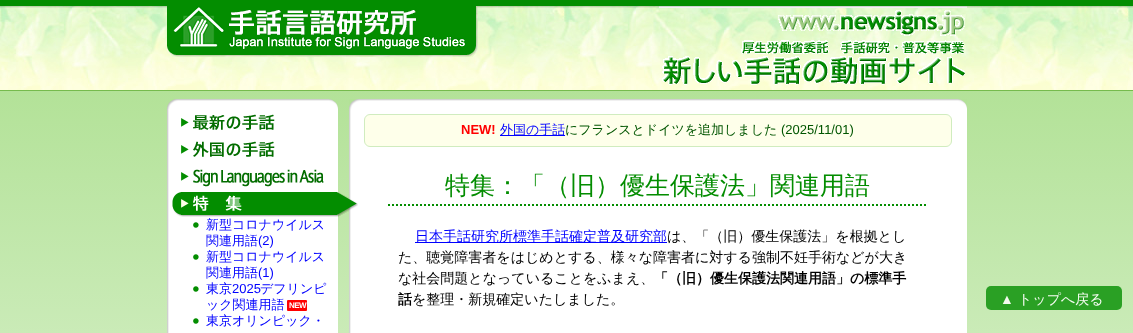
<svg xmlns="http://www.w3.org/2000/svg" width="1133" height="333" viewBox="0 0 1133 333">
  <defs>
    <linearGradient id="g1" gradientUnits="userSpaceOnUse" x1="567" y1="91" x2="567" y2="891"><stop offset="0" stop-color="#b3e298"/><stop offset="1" stop-color="#ffffff"/></linearGradient>
  </defs>
  <rect width="100%" height="100%" fill="#ffffff"/>
  <image x="0" y="6" width="1133" height="84" href="img1.png"/>
  <rect x="0" y="0" width="1133" height="6" fill="#038d00"/>
  <rect x="0" y="90" width="1133" height="1" fill="#76bb4d"/>
  <image x="167" y="6" width="311" height="51" href="img2.png"/>
  <image x="659" y="6" width="308" height="79" href="img3.png"/>
  <rect x="0" y="91" width="1133" height="242" fill="url(#g1)"/>
  <image x="167" y="99" width="171" height="10" href="img4.png"/>
  <image x="167" y="109" width="171" height="224" href="img5.png"/>
  <image x="181" y="118" width="8" height="9" href="img6.png"/>
  <image x="193" y="114" width="82" height="16" href="img7.png"/>
  <image x="181" y="145" width="8" height="9" href="img6.png"/>
  <image x="193" y="141" width="82" height="16" href="img8.png"/>
  <image x="181" y="172" width="8" height="9" href="img6.png"/>
  <image x="193" y="169" width="131" height="18" href="img9.png"/>
  <image x="172" y="192" width="156" height="25" href="img10.png"/>
  <image x="193" y="195" width="49" height="16" href="img11.png"/>
  <image x="349" y="99" width="618" height="234" href="img14.png"/>
  <image x="328" y="192" width="30" height="25" href="img12.png"/>
  <image x="193" y="222" width="6" height="6" href="img13.png"/>
  <text x="206" y="229" font-family="WenQuanYi Zen Hei" font-size="13" font-weight="500" fill="#0000ff">新型コロナウイルス</text>
  <text x="206" y="245" font-family="WenQuanYi Zen Hei" font-size="13" font-weight="500" fill="#0000ff">関連用語</text>
  <text x="258" y="245" font-family="Liberation Sans" font-size="13" fill="#0000ff">(2)</text>
  <image x="193" y="254" width="6" height="6" href="img13.png"/>
  <text x="206" y="261" font-family="WenQuanYi Zen Hei" font-size="13" font-weight="500" fill="#0000ff">新型コロナウイルス</text>
  <text x="206" y="277" font-family="WenQuanYi Zen Hei" font-size="13" font-weight="500" fill="#0000ff">関連用語</text>
  <text x="258" y="277" font-family="Liberation Sans" font-size="13" fill="#0000ff">(1)</text>
  <image x="193" y="286" width="6" height="6" href="img13.png"/>
  <text x="206" y="293" font-family="WenQuanYi Zen Hei" font-size="13" font-weight="500" fill="#0000ff">東京</text>
  <text x="232" y="293" font-family="Liberation Sans" font-size="13" fill="#0000ff">2025</text>
  <text x="260" y="293" font-family="WenQuanYi Zen Hei" font-size="13" font-weight="500" fill="#0000ff">デフリンピ</text>
  <text x="206" y="309" font-family="WenQuanYi Zen Hei" font-size="13" font-weight="500" fill="#0000ff">ック関連用語</text>
  <rect x="287" y="300" width="20" height="11" rx="1" fill="#ff0000"/>
  <text x="289" y="308" font-family="Liberation Sans" font-size="8" font-weight="bold" letter-spacing="-0.5" fill="#ffffff">NEW</text>
  <image x="193" y="318" width="6" height="6" href="img13.png"/>
  <text x="206" y="325" font-family="WenQuanYi Zen Hei" font-size="13" font-weight="500" fill="#0000ff">東京オリンピック・</text>
  <rect x="364.5" y="114.5" width="587" height="32" rx="5.5" fill="#feffea" stroke="#d0ecbf"/>
  <text x="461" y="134" font-family="Liberation Sans" font-size="13" font-weight="bold" fill="#ff0000">NEW!</text>
  <rect x="500" y="135" width="65" height="1" fill="#0000ff"/>
  <text x="500" y="134" font-family="WenQuanYi Zen Hei" font-size="13" font-weight="500" fill="#0000ff">外国の手話</text>
  <text x="565" y="134" font-family="WenQuanYi Zen Hei" font-size="13" font-weight="500" fill="#005500">にフランスとドイツを追加しました</text>
  <text x="781" y="134" font-family="Liberation Sans" font-size="13" fill="#005500">(2025/11/01)</text>
  <path d="M388 205H928" fill="none" stroke="#038d00" stroke-width="2" stroke-dasharray="2 2"/>
  <text x="445" y="194" font-family="WenQuanYi Zen Hei" font-size="25" font-weight="500" fill="#038d00">特集：「（旧）優生保護法」関連用語</text>
  <rect x="415" y="242" width="252" height="1" fill="#0000ff"/>
  <text x="415" y="241" font-family="WenQuanYi Zen Hei" font-size="14" font-weight="500" fill="#0000ff">日本手話研究所標準手話確定普及研究部</text>
  <text x="667" y="241" font-family="WenQuanYi Zen Hei" font-size="14" font-weight="500" fill="#000000">は、「（旧）優生保護法」を根拠とし</text>
  <text x="398" y="262" font-family="WenQuanYi Zen Hei" font-size="14" font-weight="500" fill="#000000">た、聴覚障害者をはじめとする、様々な障害者に対する強制不妊手術などが大き</text>
  <text x="398" y="283" font-family="WenQuanYi Zen Hei" font-size="14" font-weight="500" fill="#000000">な社会問題となっていることをふまえ、</text>
  <text x="654" y="283" font-family="WenQuanYi Zen Hei" font-size="14" font-weight="bold" fill="#000000">「（旧）優生保護法関連用語」の標準手</text>
  <text x="398" y="304" font-family="WenQuanYi Zen Hei" font-size="14" font-weight="bold" fill="#000000">話</text>
  <text x="412" y="304" font-family="WenQuanYi Zen Hei" font-size="14" font-weight="500" fill="#000000">を整理・新規確定いたしました。</text>
  <rect x="986" y="286" width="136" height="24" rx="5" fill="#038d00" fill-opacity="0.8"/>
  <text x="1000" y="304" font-family="Liberation Sans" font-size="14" fill="#f4fbf0">▲</text>
  <text x="1018" y="304" font-family="WenQuanYi Zen Hei" font-size="14" font-weight="500" fill="#f4fbf0">トップへ戻る</text>
</svg>
